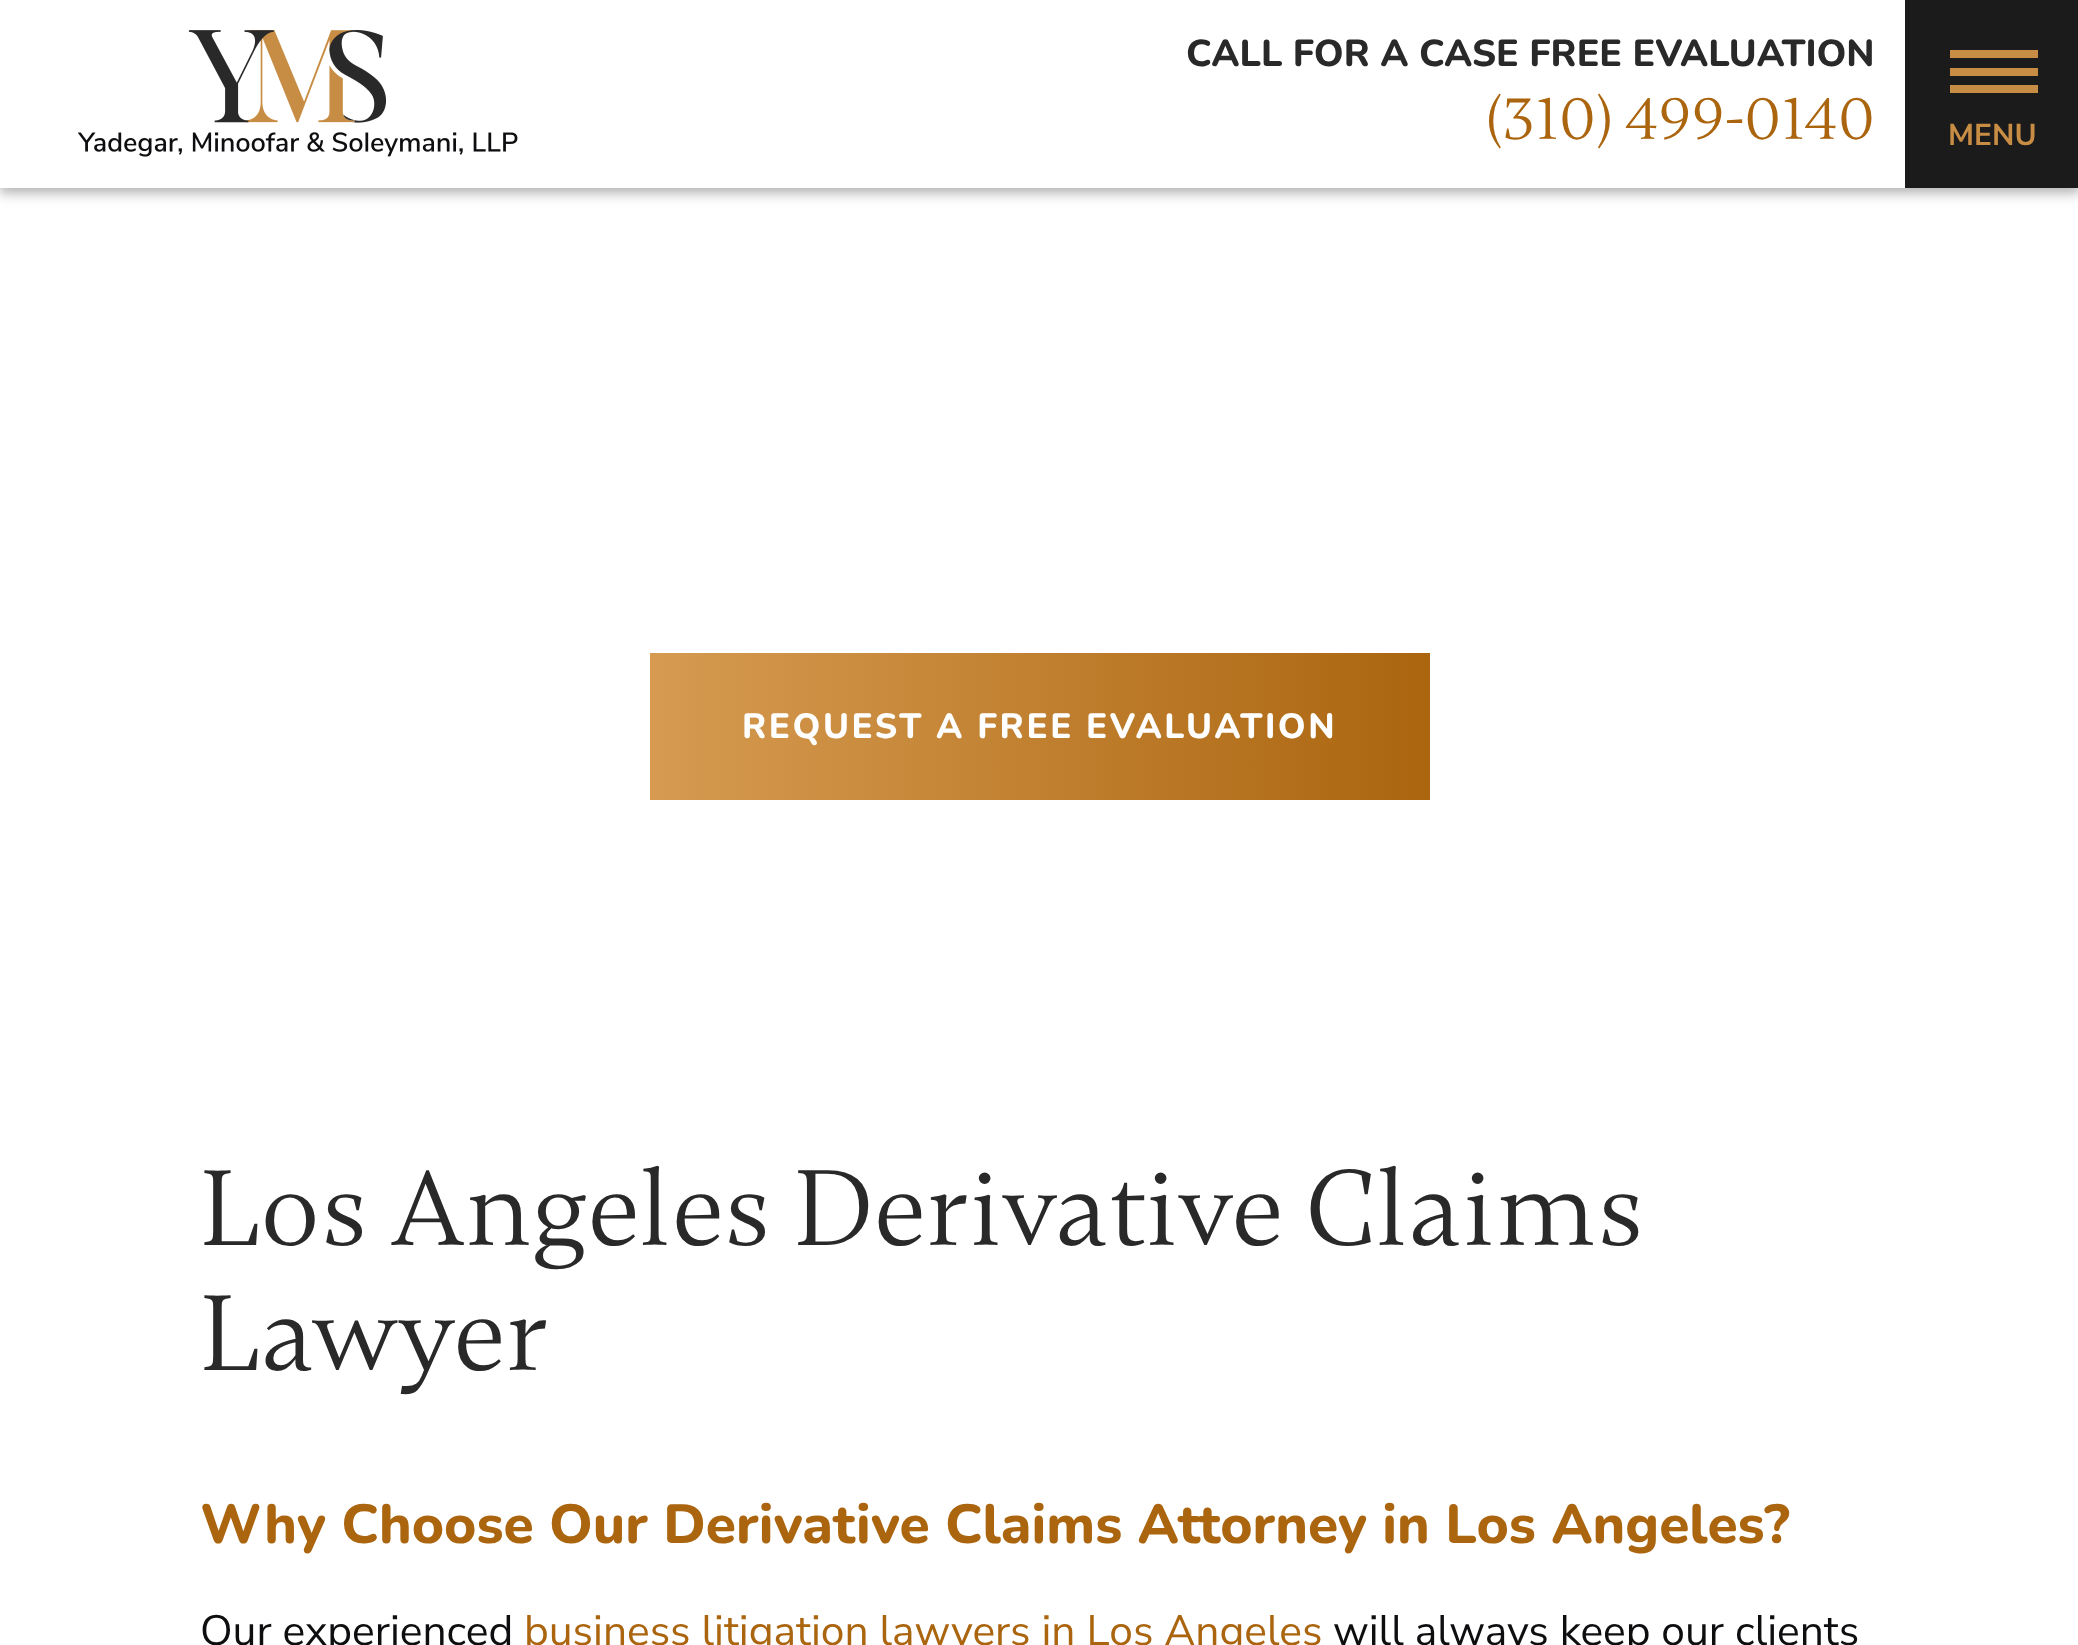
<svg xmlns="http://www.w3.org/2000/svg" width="2078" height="1645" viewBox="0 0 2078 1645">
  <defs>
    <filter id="blur1" x="-50%" y="-200%" width="200%" height="500%"><feGaussianBlur stdDeviation="5"/></filter>
    <filter id="blur2" x="-50%" y="-200%" width="200%" height="500%"><feGaussianBlur stdDeviation="7.5"/></filter>
    <linearGradient id="g1" gradientUnits="userSpaceOnUse" x1="650" y1="726" x2="1430" y2="726"><stop offset="0" stop-color="#d69b51"/><stop offset="1" stop-color="#ab650f"/></linearGradient>
  </defs>
  <rect width="100%" height="100%" fill="#ffffff"/>
  <rect x="0" y="5" width="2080" height="188" fill="#000000" fill-opacity="0.2" filter="url(#blur1)"/>
  <rect x="0" y="8" width="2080" height="187" fill="#000000" fill-opacity="0.1" filter="url(#blur2)"/>
  <rect x="0" y="0" width="1905" height="188" fill="#ffffff"/>
  <image x="78" y="30" width="440" height="127" href="img1.png"/>
  <text x="1186" y="66" font-family="Nunito" font-size="37.5" font-weight="800" fill="#292929">CALL FOR A CASE FREE EVALUATION</text>
  <text x="1486" y="139" font-family="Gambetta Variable" font-size="62.5" fill="#ab650f">(310) 499-0140</text>
  <rect x="1905" y="0" width="173" height="188" fill="#1c1b1b"/>
  <rect x="1950" y="50" width="88" height="8" fill="#c88d44"/>
  <rect x="1950" y="68" width="88" height="8" fill="#c88d44"/>
  <rect x="1950" y="85" width="88" height="8" fill="#c88d44"/>
  <text x="1948" y="145" font-family="Nunito Sans" font-size="30" font-weight="bold" fill="#c88d44">MENU</text>
  <rect x="650" y="653" width="780" height="147" fill="url(#g1)"/>
  <text x="742" y="738" font-family="Nunito" font-size="35" font-weight="800" letter-spacing="2.5" fill="#ffffff">REQUEST A FREE EVALUATION</text>
  <text x="200" y="1245" font-family="Gambetta Variable" font-size="110" fill="#292929">Los Angeles Derivative Claims</text>
  <text x="200" y="1370" font-family="Gambetta Variable" font-size="110" fill="#292929">Lawyer</text>
  <text x="200" y="1543" font-family="Nunito" font-size="55" font-weight="800" fill="#ab650f">Why Choose Our Derivative Claims Attorney in Los Angeles?</text>
  <text x="200" y="1645" font-family="Nunito Sans" font-size="42.5" fill="#0e0d10">Our experienced</text>
  <text x="524" y="1645" font-family="Nunito Sans" font-size="42.5" fill="#ab650f">business litigation lawyers in Los Angeles</text>
  <text x="1333" y="1645" font-family="Nunito Sans" font-size="42.5" fill="#0e0d10">will always keep our clients</text>
</svg>
